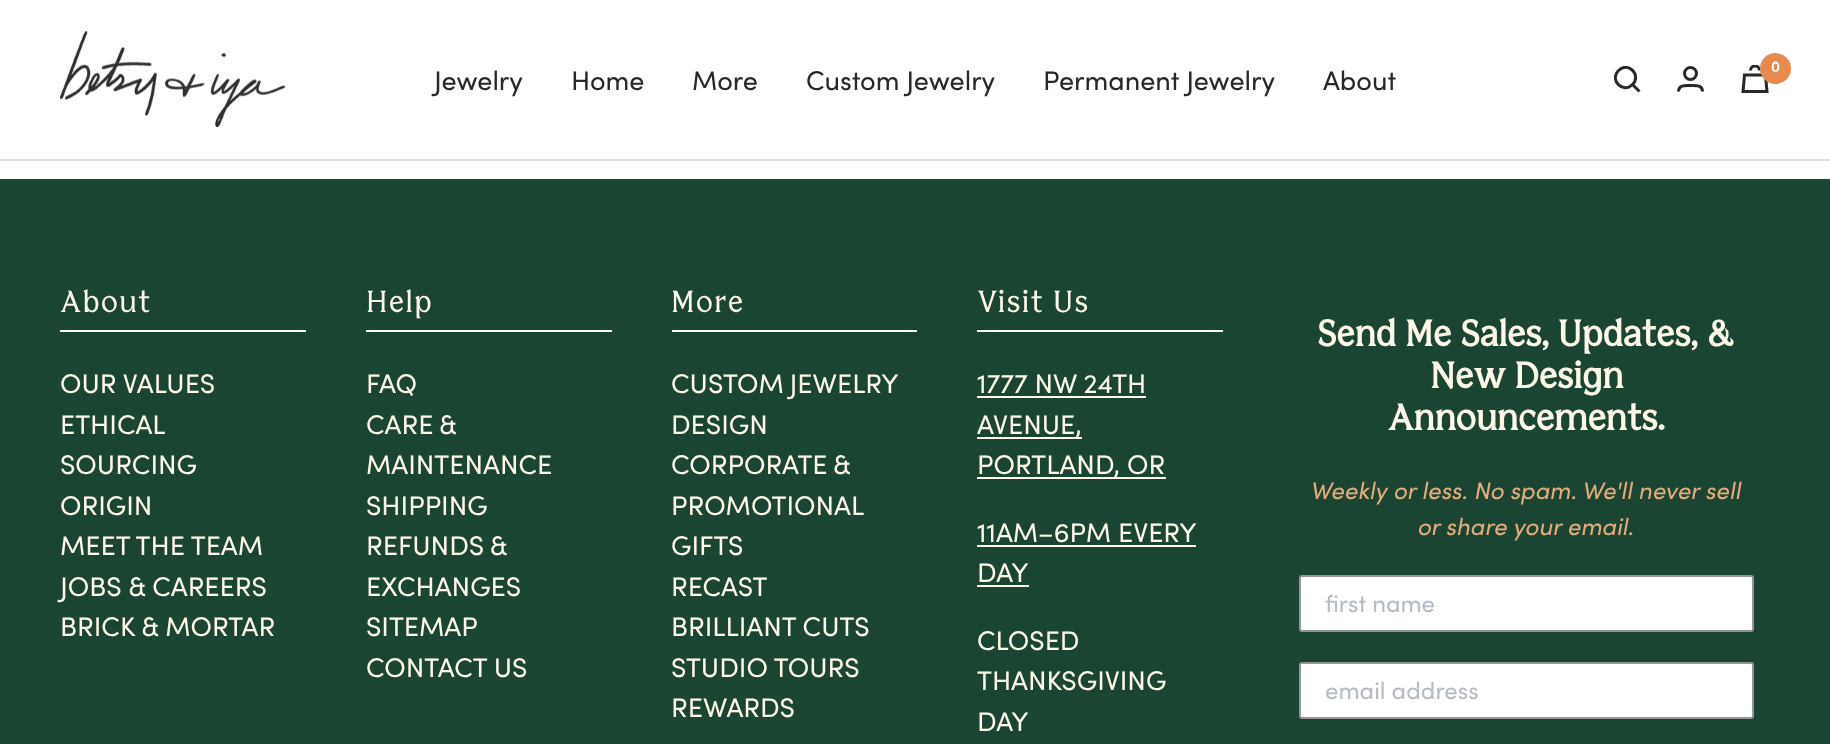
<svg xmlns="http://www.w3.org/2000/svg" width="1830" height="744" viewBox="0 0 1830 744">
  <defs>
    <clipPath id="clip1"><rect x="1614" y="66" width="27" height="27"/></clipPath>
    <clipPath id="clip2"><rect x="1740" y="65" width="30" height="28"/></clipPath>
  </defs>
  <rect width="100%" height="100%" fill="#ffffff"/>
  <rect x="0" y="159" width="1830" height="2" fill="#e0e0e0"/>
  <image x="60" y="31" width="225" height="96" href="img1.png"/>
  <g clip-path="url(#clip1)">
    <path d="M1632.5 84.5C1642 75 1628 61 1618.5 70.5C1609 80 1623 94 1632.5 84.5ZM1632.5 84.5L1639.5 91.5" fill="none" stroke="#282828" stroke-width="3"/>
  </g>
  <circle cx="1690.5" cy="73.5" r="6" fill="none" stroke="#282828" stroke-width="3"/>
  <path d="M1678.5 91.5C1678.5 84.5 1686 85.5 1690.5 85.5C1695 85.5 1702.5 84.5 1702.5 91.5" fill="none" stroke="#282828" stroke-width="3"/>
  <path d="M1744.5 75H1765.5L1767 91.5H1743Z" fill="none" stroke="#282828" stroke-width="3"/>
  <g clip-path="url(#clip2)">
    <path d="M1759.5 70.5C1759.5 64.5 1750.5 64.5 1750.5 70.5" fill="none" stroke="#282828" stroke-width="3"/>
  </g>
  <circle cx="1775.5" cy="68.5" r="15.5" fill="#e88a4d"/>
  <text x="1771" y="72" font-family="Poppins" font-size="14" font-weight="600" fill="#ffffff">0</text>
  <text x="434" y="90" font-family="Sofia" font-size="27" fill="#282828">Jewelry</text>
  <text x="571" y="90" font-family="Sofia" font-size="27" fill="#282828">Home</text>
  <text x="692" y="90" font-family="Sofia" font-size="27" fill="#282828">More</text>
  <text x="806" y="90" font-family="Sofia" font-size="27" fill="#282828">Custom Jewelry</text>
  <text x="1043" y="90" font-family="Sofia" font-size="27" fill="#282828">Permanent Jewelry</text>
  <text x="1323" y="90" font-family="Sofia" font-size="27" fill="#282828">About</text>
  <rect x="0" y="179" width="1830" height="565" fill="#1a4532"/>
  <rect x="60" y="330" width="246" height="2" fill="#ffffff"/>
  <text x="60" y="312" font-family="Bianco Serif" font-size="30" letter-spacing="1.5" fill="#fff7e7">About</text>
  <text x="60" y="393" font-family="Sofia" font-size="27" fill="#fff7e7">OUR VALUES</text>
  <text x="60" y="434" font-family="Sofia" font-size="27" fill="#fff7e7">ETHICAL</text>
  <text x="60" y="474" font-family="Sofia" font-size="27" fill="#fff7e7">SOURCING</text>
  <text x="60" y="515" font-family="Sofia" font-size="27" fill="#fff7e7">ORIGIN</text>
  <text x="60" y="555" font-family="Sofia" font-size="27" fill="#fff7e7">MEET THE TEAM</text>
  <text x="60" y="596" font-family="Sofia" font-size="27" fill="#fff7e7">JOBS &amp; CAREERS</text>
  <text x="60" y="636" font-family="Sofia" font-size="27" fill="#fff7e7">BRICK &amp; MORTAR</text>
  <rect x="366" y="330" width="246" height="2" fill="#ffffff"/>
  <text x="366" y="312" font-family="Bianco Serif" font-size="30" letter-spacing="1.5" fill="#fff7e7">Help</text>
  <text x="366" y="393" font-family="Sofia" font-size="27" fill="#fff7e7">FAQ</text>
  <text x="366" y="434" word-spacing="-1" font-family="Sofia" font-size="27" fill="#fff7e7">CARE &amp;</text>
  <text x="366" y="474" font-family="Sofia" font-size="27" fill="#fff7e7">MAINTENANCE</text>
  <text x="366" y="515" font-family="Sofia" font-size="27" fill="#fff7e7">SHIPPING</text>
  <text x="366" y="555" word-spacing="-1" font-family="Sofia" font-size="27" fill="#fff7e7">REFUNDS &amp;</text>
  <text x="366" y="596" font-family="Sofia" font-size="27" fill="#fff7e7">EXCHANGES</text>
  <text x="366" y="636" font-family="Sofia" font-size="27" fill="#fff7e7">SITEMAP</text>
  <text x="366" y="677" font-family="Sofia" font-size="27" fill="#fff7e7">CONTACT US</text>
  <rect x="672" y="330" width="245" height="2" fill="#ffffff"/>
  <text x="671" y="312" font-family="Bianco Serif" font-size="30" letter-spacing="1.5" fill="#fff7e7">More</text>
  <text x="671" y="393" word-spacing="-1" font-family="Sofia" font-size="27" fill="#fff7e7">CUSTOM JEWELRY</text>
  <text x="671" y="434" font-family="Sofia" font-size="27" fill="#fff7e7">DESIGN</text>
  <text x="671" y="474" word-spacing="-1" font-family="Sofia" font-size="27" fill="#fff7e7">CORPORATE &amp;</text>
  <text x="671" y="515" font-family="Sofia" font-size="27" fill="#fff7e7">PROMOTIONAL</text>
  <text x="671" y="555" font-family="Sofia" font-size="27" fill="#fff7e7">GIFTS</text>
  <text x="671" y="596" font-family="Sofia" font-size="27" fill="#fff7e7">RECAST</text>
  <text x="671" y="636" font-family="Sofia" font-size="27" fill="#fff7e7">BRILLIANT CUTS</text>
  <text x="671" y="677" font-family="Sofia" font-size="27" fill="#fff7e7">STUDIO TOURS</text>
  <text x="671" y="717" font-family="Sofia" font-size="27" fill="#fff7e7">REWARDS</text>
  <rect x="977" y="330" width="246" height="2" fill="#ffffff"/>
  <text x="977" y="312" font-family="Bianco Serif" font-size="30" letter-spacing="1.5" fill="#fff7e7">Visit Us</text>
  <text x="977" y="393" font-family="Sofia" font-size="27" fill="#fff7e7">1777 NW 24TH</text>
  <rect x="977" y="396" width="169" height="2" fill="#fff7e7"/>
  <rect x="977" y="437" width="105" height="2" fill="#fff7e7"/>
  <text x="977" y="434" font-family="Sofia" font-size="27" fill="#fff7e7">AVENUE,</text>
  <rect x="977" y="477" width="189" height="2" fill="#fff7e7"/>
  <text x="977" y="474" font-family="Sofia" font-size="27" fill="#fff7e7">PORTLAND, OR</text>
  <text x="977" y="542" font-family="Sofia" font-size="27" fill="#fff7e7">11AM–6PM EVERY</text>
  <rect x="977" y="545" width="219" height="2" fill="#fff7e7"/>
  <text x="977" y="582" font-family="Sofia" font-size="27" fill="#fff7e7">DAY</text>
  <rect x="977" y="585" width="52" height="2" fill="#fff7e7"/>
  <text x="977" y="650" font-family="Sofia" font-size="27" fill="#fff7e7">CLOSED</text>
  <text x="977" y="690" font-family="Sofia" font-size="27" fill="#fff7e7">THANKSGIVING</text>
  <text x="977" y="731" font-family="Sofia" font-size="27" fill="#fff7e7">DAY</text>
  <text x="1317" y="346" font-family="Bianco Serif" font-size="36" font-weight="bold" fill="#fff7e7">Send Me Sales, Updates, &amp;</text>
  <text x="1430" y="388" font-family="Bianco Serif" font-size="36" font-weight="bold" fill="#fff7e7">New Design</text>
  <text x="1388" y="430" font-family="Bianco Serif" font-size="36" font-weight="bold" fill="#fff7e7">Announcements.</text>
  <text x="1311" y="499" font-family="Sofia" font-size="24" font-style="italic" fill="#e4ab7b">Weekly or less. No spam. We'll never sell</text>
  <text x="1418" y="535" font-family="Sofia" font-size="24" font-style="italic" fill="#e4ab7b">or share your email.</text>
  <rect x="1300" y="576" width="453" height="55" rx="2" fill="#ffffff" stroke="#949596" stroke-width="2"/>
  <text x="1325" y="612" font-family="'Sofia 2'" font-size="24" fill="#b4bbc3">first name</text>
  <rect x="1300" y="663" width="453" height="55" rx="2" fill="#ffffff" stroke="#949596" stroke-width="2"/>
  <text x="1325" y="699" font-family="'Sofia 2'" font-size="24" fill="#b4bbc3">email address</text>
</svg>
